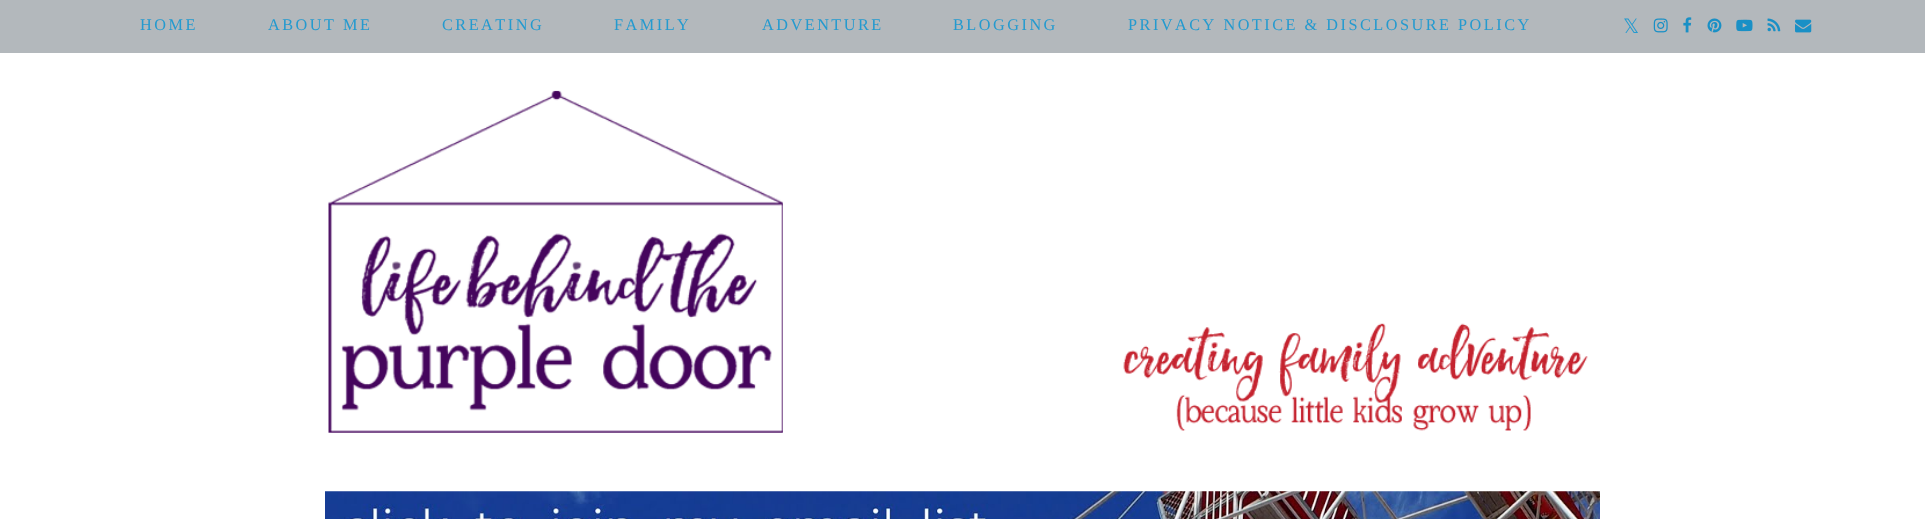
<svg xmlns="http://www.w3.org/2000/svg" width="1925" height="519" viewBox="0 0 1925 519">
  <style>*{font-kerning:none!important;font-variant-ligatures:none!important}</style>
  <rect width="100%" height="100%" fill="#ffffff"/>
  <rect x="0" y="0" width="1925" height="53" fill="#b3b8bc"/>
  <text x="140" y="30" font-family="Liberation Serif" font-size="16.25" letter-spacing="2.5" fill="#249acf">HOME</text>
  <text x="268" y="30" font-family="Liberation Serif" font-size="16.25" letter-spacing="2.5" fill="#249acf">ABOUT ME</text>
  <text x="442" y="30" font-family="Liberation Serif" font-size="16.25" letter-spacing="2.5" fill="#249acf">CREATING</text>
  <text x="614" y="30" font-family="Liberation Serif" font-size="16.25" letter-spacing="2.5" fill="#249acf">FAMILY</text>
  <text x="762" y="30" font-family="Liberation Serif" font-size="16.25" letter-spacing="2.5" fill="#249acf">ADVENTURE</text>
  <text x="953" y="30" font-family="Liberation Serif" font-size="16.25" letter-spacing="2.5" fill="#249acf">BLOGGING</text>
  <text x="1128" y="30" font-family="Liberation Serif" font-size="16.25" letter-spacing="2.5" fill="#249acf">PRIVACY NOTICE &amp; DISCLOSURE POLICY</text>
  <text x="1623" y="33" font-family="DejaVu Sans" font-size="20" letter-spacing="2.5" fill="#249acf">𝕏</text>
  <image x="1653" y="18" width="15" height="15" href="img1.png"/>
  <image x="1683" y="17" width="9" height="16" href="img2.png"/>
  <image x="1707" y="18" width="15" height="15" href="img3.png"/>
  <image x="1736" y="19" width="17" height="13" href="img4.png"/>
  <image x="1767" y="18" width="14" height="14" href="img5.png"/>
  <image x="1795" y="19" width="17" height="14" href="img6.png"/>
  <image x="328" y="90" width="1260" height="343" href="img7.png"/>
  <image x="325" y="491" width="1275" height="28" href="img8.png"/>
</svg>
